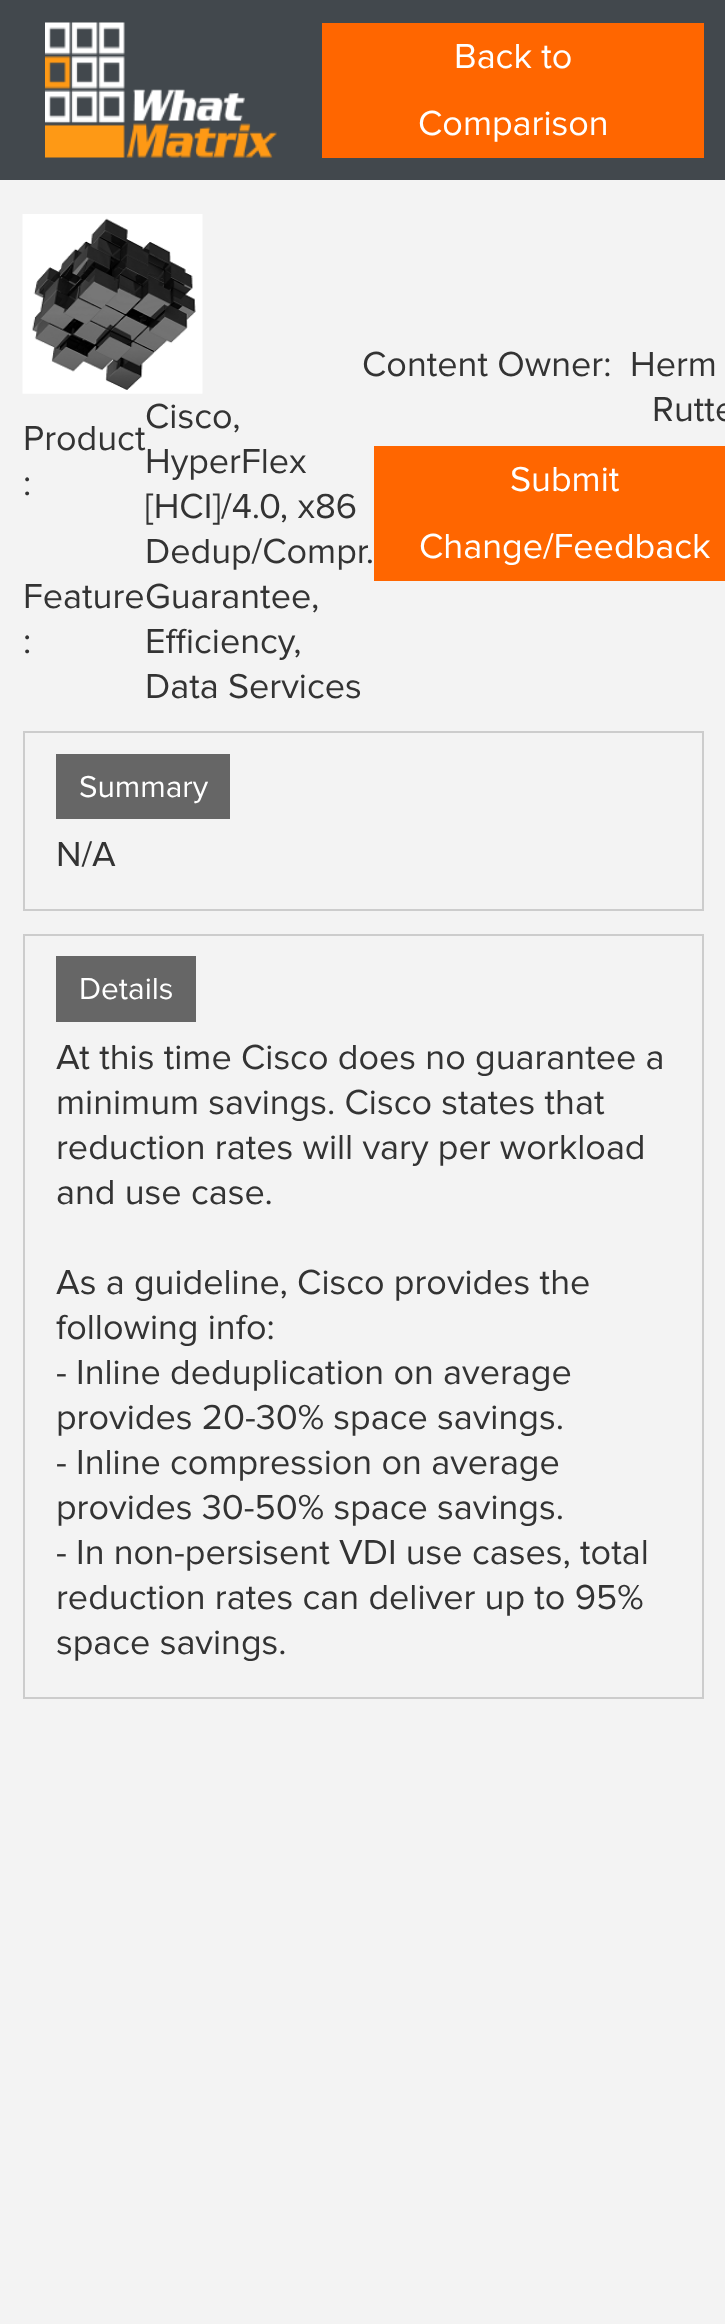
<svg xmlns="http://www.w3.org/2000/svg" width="725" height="2324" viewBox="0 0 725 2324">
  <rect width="100%" height="100%" fill="#f3f3f3"/>
  <rect x="0" y="0" width="725" height="180" fill="#42484d"/>
  <image x="45" y="22" width="232" height="136" href="img1.png"/>
  <rect x="322" y="23" width="382" height="135" fill="#ff6600"/>
  <text x="454" y="68" font-family="Proxima Nova" font-size="36" fill="#ffffff">Back to</text>
  <text x="418" y="135" font-family="Proxima Nova" font-size="36" fill="#ffffff">Comparison</text>
  <image x="22" y="214" width="181" height="180" href="img2.png"/>
  <text x="23" y="450" font-family="Proxima Nova" font-size="36" fill="#333333">Product</text>
  <text x="23" y="495" font-family="Proxima Nova" font-size="36" fill="#333333">:</text>
  <text x="145" y="428" font-family="Proxima Nova" font-size="36" fill="#333333">Cisco,</text>
  <text x="145" y="473" font-family="Proxima Nova" font-size="36" fill="#333333">HyperFlex</text>
  <text x="145" y="518" font-family="Proxima Nova" font-size="36" fill="#333333">[HCI]/4.0, x86</text>
  <text x="23" y="608" font-family="Proxima Nova" font-size="36" fill="#333333">Feature</text>
  <text x="23" y="653" font-family="Proxima Nova" font-size="36" fill="#333333">:</text>
  <text x="145" y="563" font-family="Proxima Nova" font-size="36" fill="#333333">Dedup/Compr.</text>
  <text x="145" y="608" font-family="Proxima Nova" font-size="36" fill="#333333">Guarantee,</text>
  <text x="145" y="653" font-family="Proxima Nova" font-size="36" fill="#333333">Efficiency,</text>
  <text x="145" y="698" font-family="Proxima Nova" font-size="36" fill="#333333">Data Services</text>
  <text x="362" y="376" font-family="Proxima Nova" font-size="36" fill="#333333" xml:space="preserve">Content Owner:  Herm</text>
  <text x="652" y="421" font-family="Proxima Nova" font-size="36" fill="#333333">Rutte</text>
  <rect x="374" y="446" width="351" height="135" fill="#ff6600"/>
  <text x="510" y="491" font-family="Proxima Nova" font-size="36" fill="#ffffff">Submit</text>
  <text x="419" y="558" font-family="Proxima Nova" font-size="36" fill="#ffffff">Change/Feedback</text>
  <rect x="24" y="732" width="679" height="178" fill="none" stroke="#cccccc" stroke-width="2"/>
  <rect x="56" y="754" width="174" height="65" fill="#666666"/>
  <text x="79" y="797" font-family="Proxima Nova" font-size="31.5" fill="#ffffff">Summary</text>
  <text x="56" y="866" font-family="Proxima Nova" font-size="36" fill="#333333">N/A</text>
  <rect x="24" y="935" width="679" height="763" fill="none" stroke="#cccccc" stroke-width="2"/>
  <rect x="56" y="956" width="140" height="66" fill="#666666"/>
  <text x="79" y="999" font-family="Proxima Nova" font-size="31.5" fill="#ffffff">Details</text>
  <text x="56" y="1069" font-family="Proxima Nova" font-size="36" fill="#333333">At this time Cisco does no guarantee a</text>
  <text x="56" y="1114" font-family="Proxima Nova" font-size="36" fill="#333333">minimum savings. Cisco states that</text>
  <text x="56" y="1159" font-family="Proxima Nova" font-size="36" fill="#333333">reduction rates will vary per workload</text>
  <text x="56" y="1204" font-family="Proxima Nova" font-size="36" fill="#333333">and use case.</text>
  <text x="56" y="1294" font-family="Proxima Nova" font-size="36" fill="#333333">As a guideline, Cisco provides the</text>
  <text x="56" y="1339" font-family="Proxima Nova" font-size="36" fill="#333333">following info:</text>
  <text x="56" y="1384" font-family="Proxima Nova" font-size="36" fill="#333333">- Inline deduplication on average</text>
  <text x="56" y="1429" font-family="Proxima Nova" font-size="36" fill="#333333">provides 20-30% space savings.</text>
  <text x="56" y="1474" font-family="Proxima Nova" font-size="36" fill="#333333">- Inline compression on average</text>
  <text x="56" y="1519" font-family="Proxima Nova" font-size="36" fill="#333333">provides 30-50% space savings.</text>
  <text x="56" y="1564" font-family="Proxima Nova" font-size="36" fill="#333333">- In non-persisent VDI use cases, total</text>
  <text x="56" y="1609" font-family="Proxima Nova" font-size="36" fill="#333333">reduction rates can deliver up to 95%</text>
  <text x="56" y="1654" font-family="Proxima Nova" font-size="36" fill="#333333">space savings.</text>
</svg>
